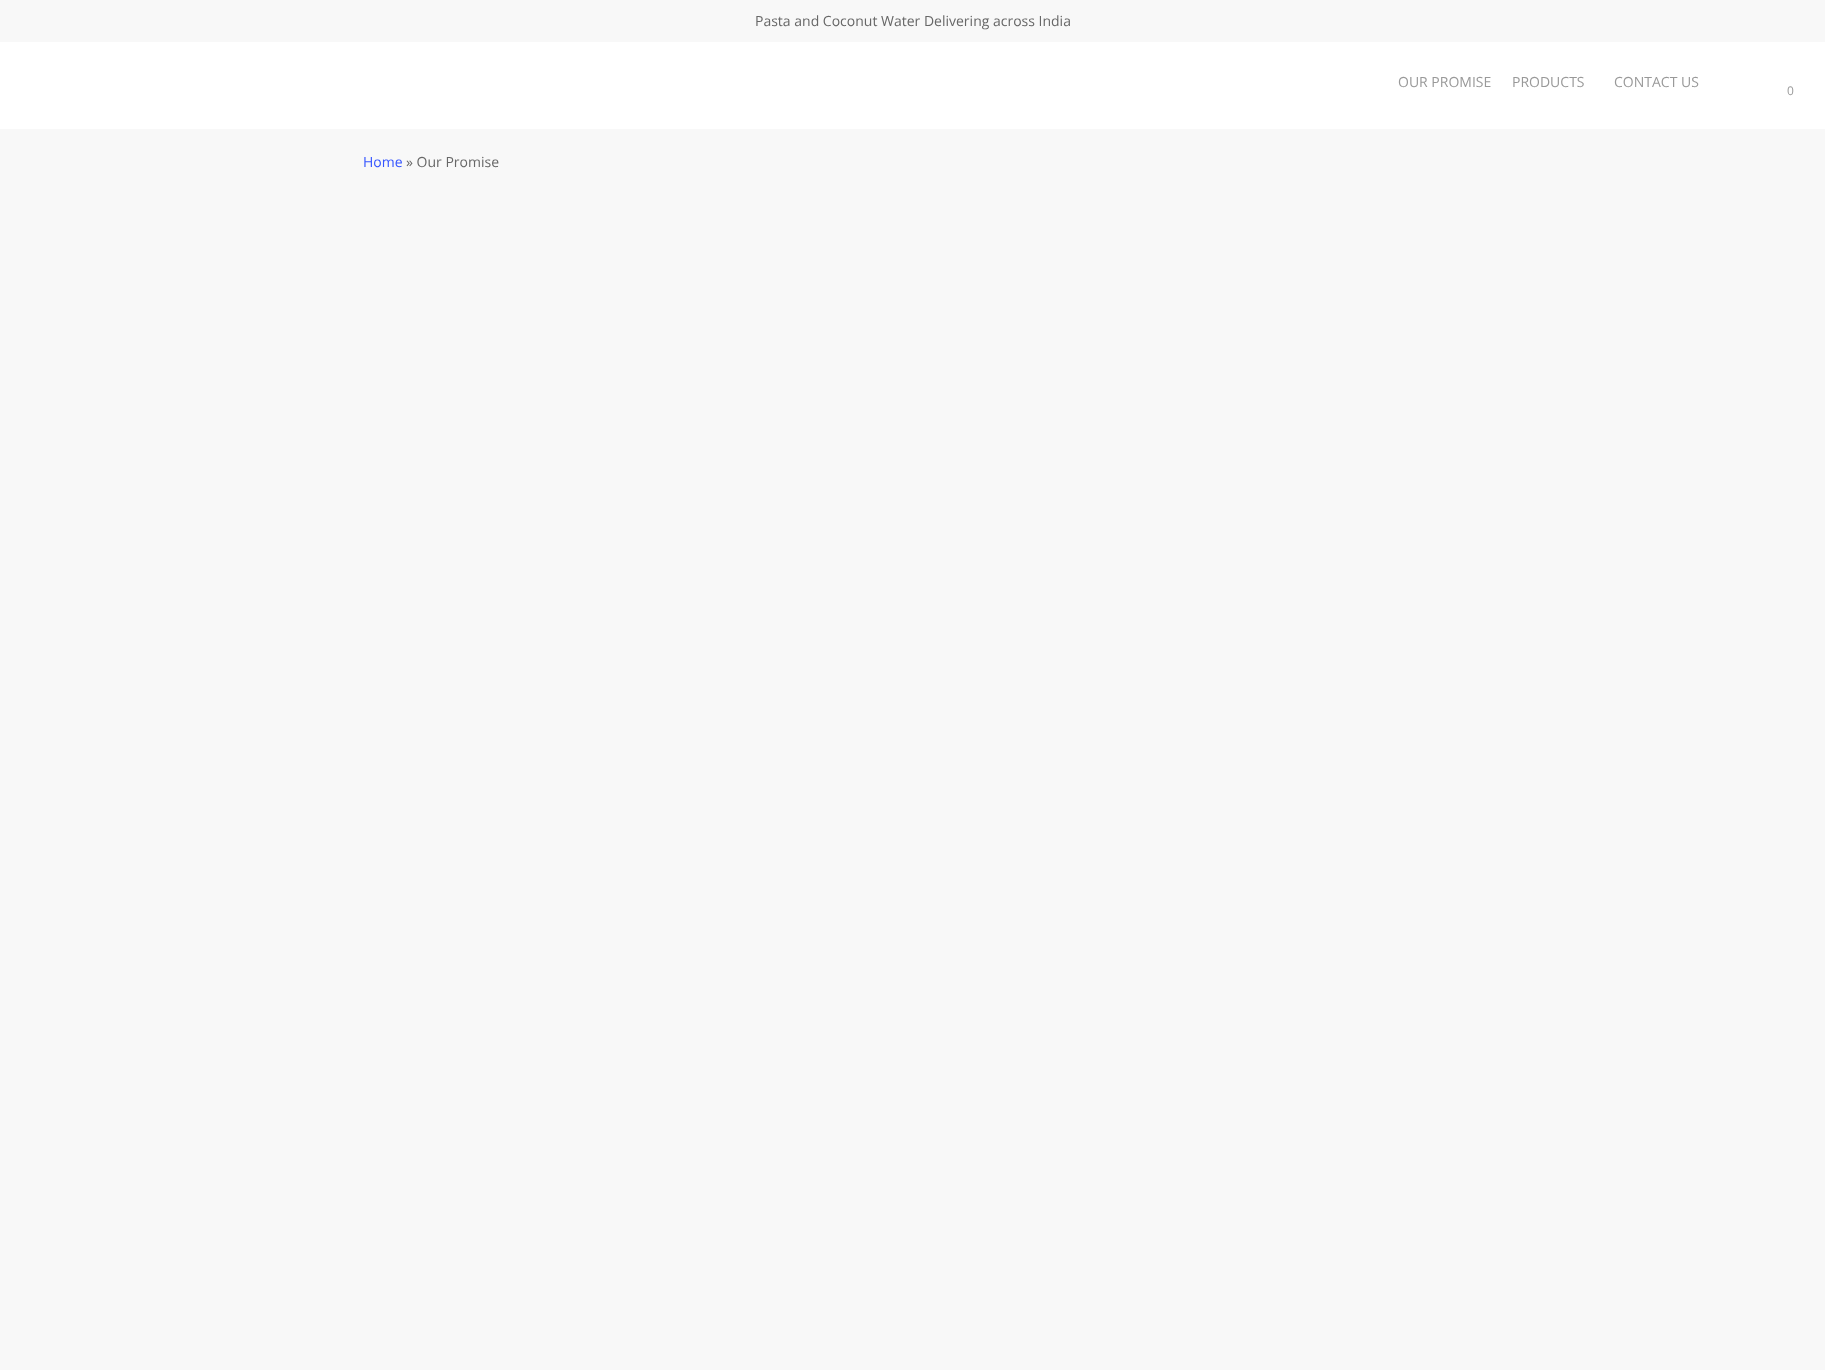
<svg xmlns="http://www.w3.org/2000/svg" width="1825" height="1370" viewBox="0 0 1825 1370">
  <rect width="100%" height="100%" fill="#ffffff"/>
  <rect x="0" y="0" width="1825" height="42" fill="#f8f8f8"/>
  <text x="755" y="26" font-family="Open Sans" font-size="14" fill="#676767">Pasta and Coconut Water Delivering across India</text>
  <text x="1398" y="87" font-family="Open Sans" font-size="14" fill="#999999">OUR PROMISE</text>
  <text x="1512" y="87" font-family="Open Sans" font-size="14" fill="#999999">PRODUCTS</text>
  <text x="1614" y="87" font-family="Open Sans" font-size="14" fill="#999999">CONTACT US</text>
  <text x="1787" y="95" font-family="Open Sans" font-size="12" fill="#999999">0</text>
  <rect x="0" y="129" width="1825" height="1241" fill="#f8f8f8"/>
  <text x="363" y="167" font-family="Open Sans" font-size="14" fill="#3555ff">Home</text>
  <text x="406" y="167" font-family="Open Sans" font-size="14" fill="#676767">» Our Promise</text>
</svg>
